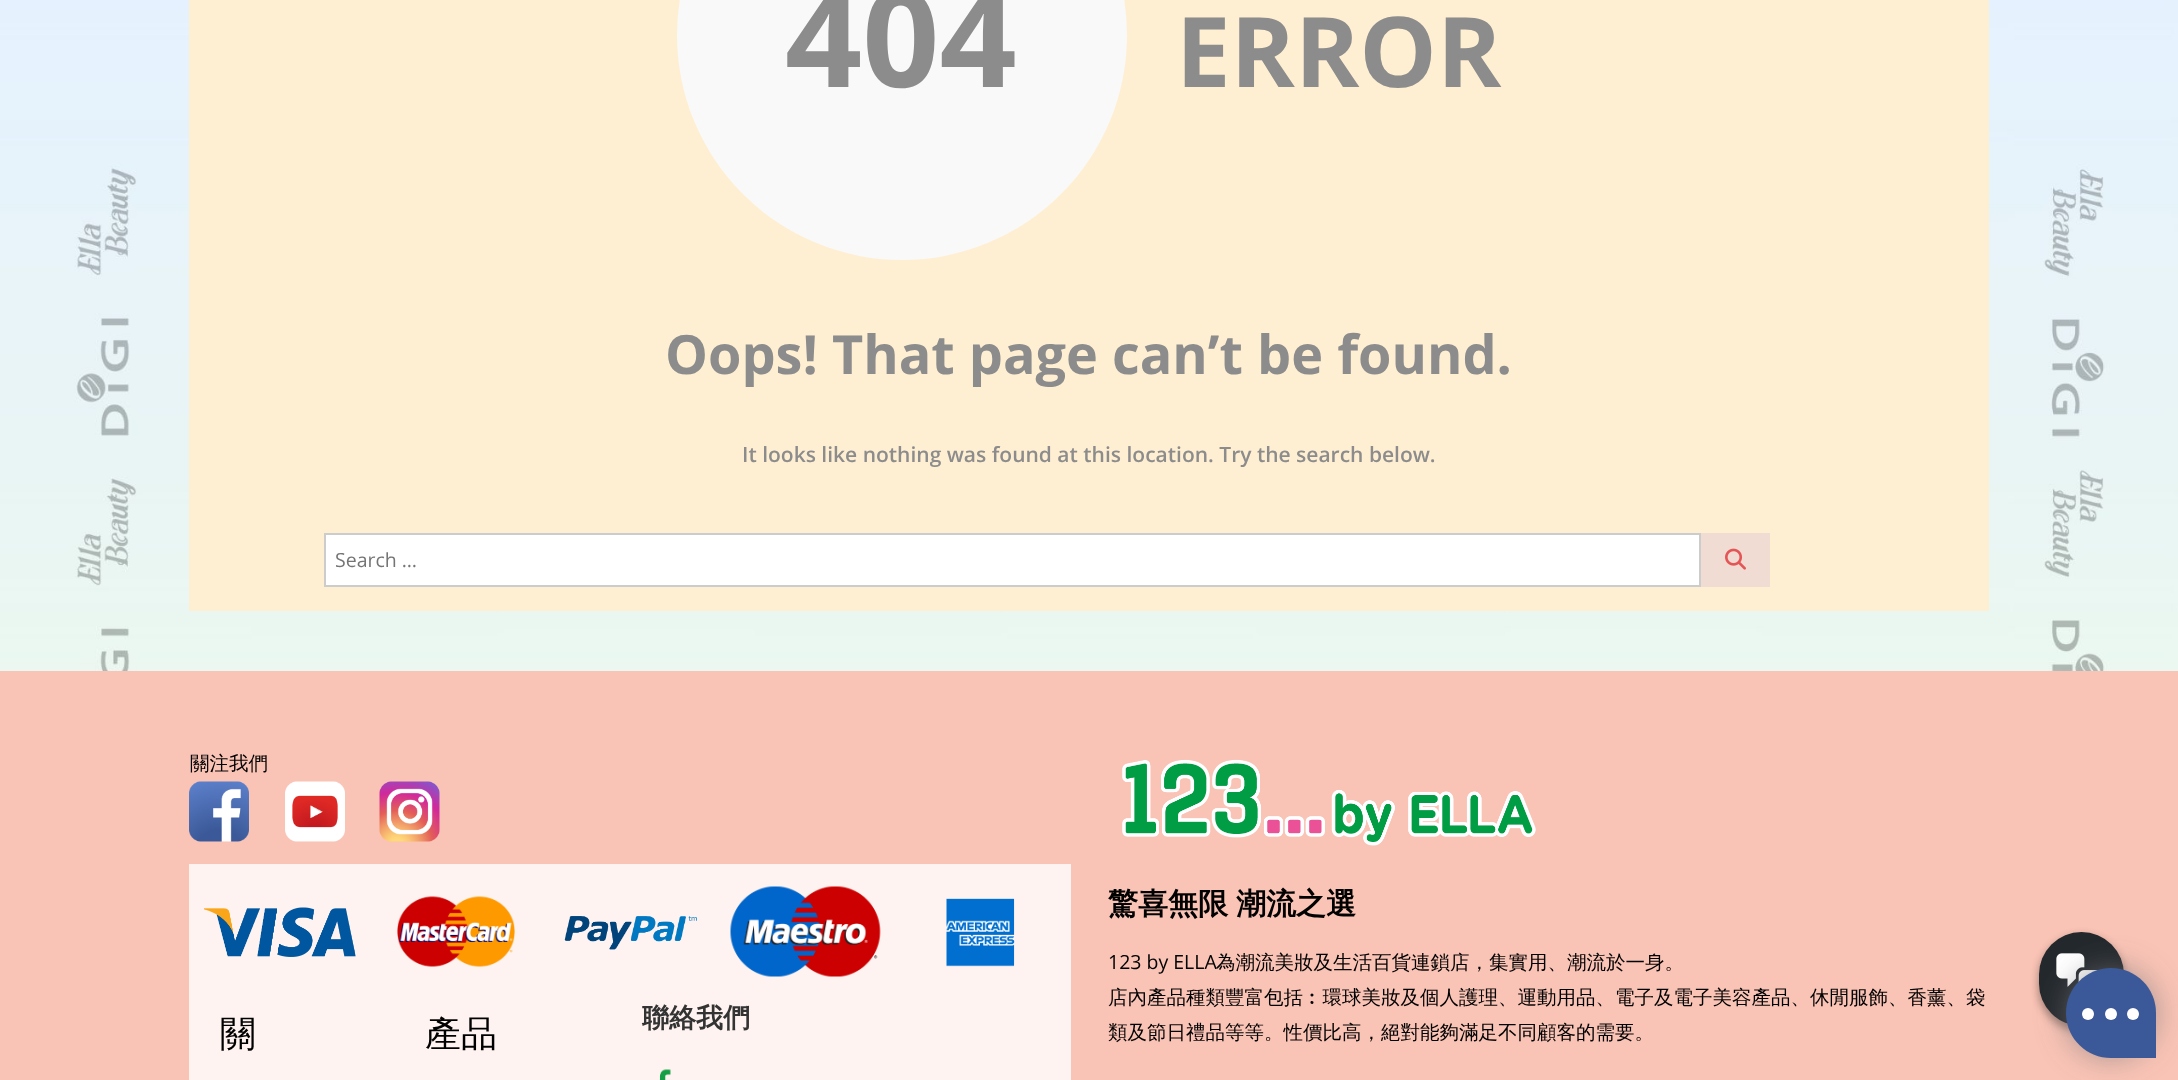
<svg xmlns="http://www.w3.org/2000/svg" width="2178" height="1080" viewBox="0 0 2178 1080">
  <defs>
    <filter id="blur1" x="-50%" y="-200%" width="200%" height="500%"><feGaussianBlur stdDeviation="4.5"/></filter>
    <filter id="blur2" x="-50%" y="-200%" width="200%" height="500%"><feGaussianBlur stdDeviation="15"/></filter>
  </defs>
  <rect width="100%" height="100%" fill="#ffffff"/>
  <image x="0" y="0" width="2178" height="671" href="img1.png"/>
  <rect x="189" y="0" width="1800" height="611" fill="#ffefd2"/>
  <circle cx="902" cy="35" r="225" fill="#f9f9f9"/>
  <text x="785" y="87" font-family="Open Sans" font-size="135" font-weight="bold" fill="#8c8c8c">404</text>
  <text x="1176" y="87" font-family="Open Sans" font-size="97.5" font-weight="bold" fill="#8c8c8c">ERROR</text>
  <text x="665" y="374" font-family="Open Sans" font-size="54" font-weight="bold" fill="#8c8c8c">Oops! That page can’t be found.</text>
  <text x="742" y="462" font-family="Open Sans" font-size="21" font-weight="600" fill="#8c8c8c">It looks like nothing was found at this location. Try the search below.</text>
  <rect x="325" y="534" width="1375" height="52" fill="#ffffff" stroke="#cccccc" stroke-width="2"/>
  <text x="335" y="567" font-family="Open Sans" font-size="19.5" fill="#757575">Search …</text>
  <rect x="1701" y="533" width="69" height="54" fill="#f1dcd4"/>
  <image x="1725" y="548" width="21" height="22" href="img2.png"/>
  <rect x="0" y="671" width="2178" height="409" fill="#f9c3b5"/>
  <text x="190" y="770" font-family="WenQuanYi Zen Hei" font-size="19.5" font-weight="500" fill="#000000">關注我們</text>
  <image x="189" y="781" width="60" height="61" href="img3.png"/>
  <image x="285" y="781" width="60" height="61" href="img4.png"/>
  <image x="379" y="781" width="61" height="61" href="img5.png"/>
  <rect x="189" y="864" width="882" height="216" fill="#fef3f0"/>
  <image x="204" y="907" width="152" height="50" href="img6.png"/>
  <image x="397" y="896" width="118" height="71" href="img7.png"/>
  <image x="564" y="916" width="133" height="34" href="img8.png"/>
  <image x="730" y="886" width="151" height="91" href="img9.png"/>
  <image x="946" y="898" width="69" height="69" href="img10.png"/>
  <text x="220" y="1046" font-family="WenQuanYi Zen Hei" font-size="36" font-weight="500" fill="#000000">關</text>
  <text x="425" y="1046" font-family="WenQuanYi Zen Hei" font-size="36" font-weight="500" fill="#000000">產品</text>
  <text x="642" y="1027" font-family="WenQuanYi Zen Hei" font-size="27" font-weight="bold" fill="#333333">聯絡我們</text>
  <image x="659" y="1069" width="12" height="11" href="img11.png"/>
  <image x="1122" y="759" width="414" height="87" href="img12.png"/>
  <text x="1108" y="914" word-spacing="-1" font-family="WenQuanYi Zen Hei" font-size="30" font-weight="bold" fill="#000000">驚喜無限 潮流之選</text>
  <text x="1108" y="969" font-family="Open Sans" font-size="19.5" fill="#000000">123 by ELLA</text>
  <text x="1216" y="969" font-family="WenQuanYi Zen Hei" font-size="19.5" font-weight="500" fill="#000000">為潮流美妝及生活百貨連鎖店，集實用、潮流於一身。</text>
  <text x="1108" y="1004" font-family="WenQuanYi Zen Hei" font-size="19.5" font-weight="500" fill="#000000">店內產品種類豐富包括︰環球美妝及個人護理、運動用品、電子及電子美容產品、休閒服飾、香薰、袋</text>
  <text x="1108" y="1039" font-family="WenQuanYi Zen Hei" font-size="19.5" font-weight="500" fill="#000000">類及節日禮品等等。性價比高，絕對能夠滿足不同顧客的需要。</text>
  <rect x="2039" y="936" width="85" height="95" rx="42.5" fill="#000000" fill-opacity="0.23" filter="url(#blur1)"/>
  <rect x="2039" y="936" width="85" height="95" rx="42.5" fill="#000000" fill-opacity="0.16" filter="url(#blur1)"/>
  <rect x="2039" y="932" width="85" height="94" rx="42.5" fill="#23282d"/>
  <image x="2056" y="953" width="42" height="34" href="img13.png"/>
  <rect x="2066" y="968" width="90" height="90" rx="45" fill="#777777" fill-opacity="0.64" filter="url(#blur2)"/>
  <path d="M2111 968C2136 968 2156 988 2156 1013V1058H2111C2086 1058 2066 1038 2066 1013C2066 988 2086 968 2111 968Z" fill="#3b5998"/>
  <circle cx="2088" cy="1014" r="6" fill="#ffffff"/>
  <circle cx="2111" cy="1014" r="6" fill="#ffffff"/>
  <circle cx="2133" cy="1014" r="6" fill="#ffffff"/>
</svg>
